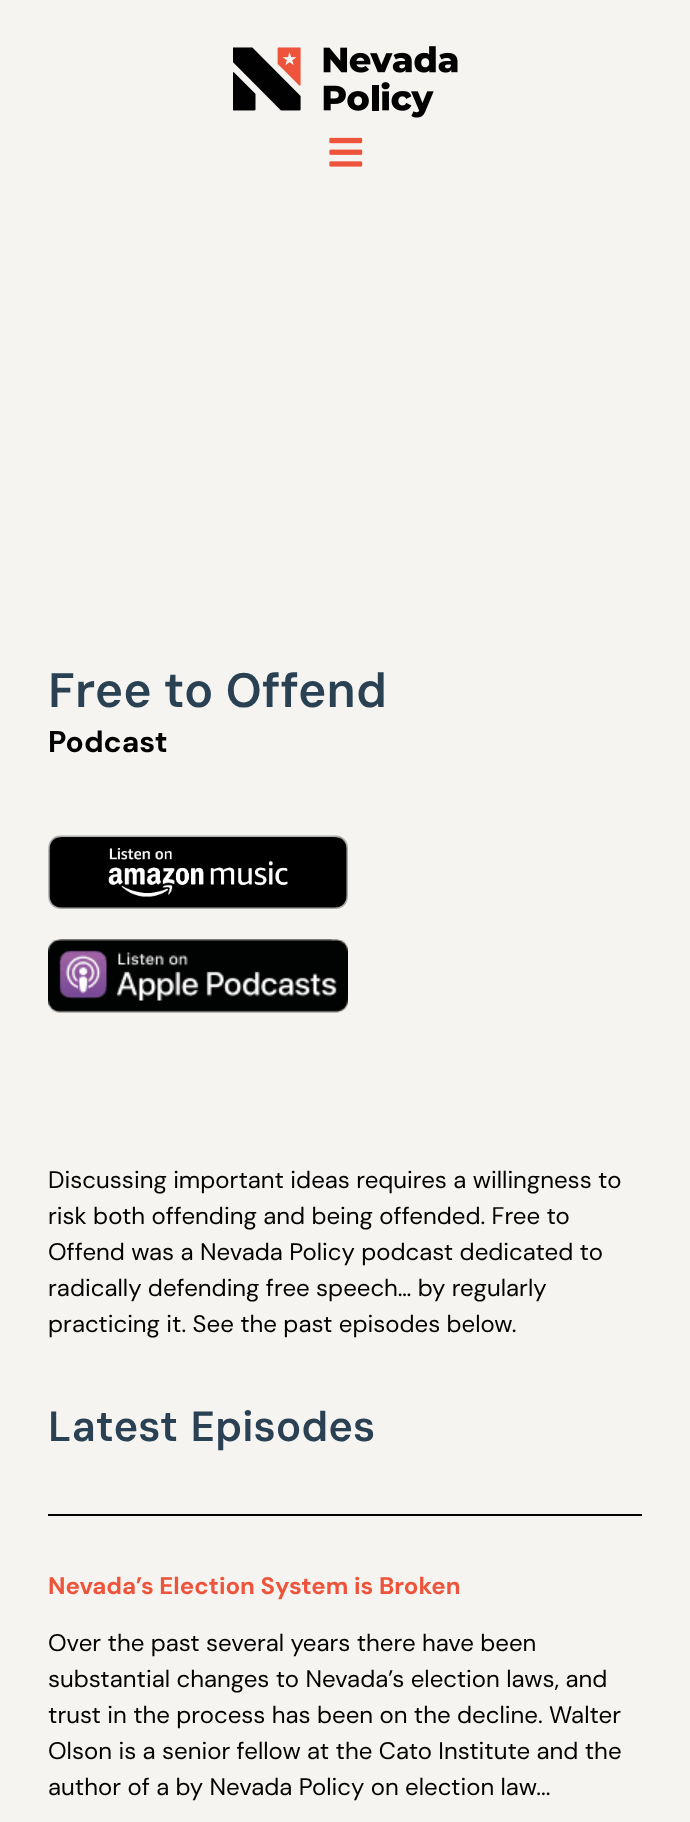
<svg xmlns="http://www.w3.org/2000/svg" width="690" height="1822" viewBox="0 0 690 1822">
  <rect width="100%" height="100%" fill="#f5f4f0"/>
  <image x="233" y="46" width="225" height="72" href="img1.png"/>
  <image x="329" y="137" width="34" height="30" href="img2.png"/>
  <text x="48" y="707" font-family="DM Sans" font-size="48.25" font-weight="600" fill="#2a4153">Free to Offend</text>
  <text x="48" y="752" font-family="DM Sans" font-size="30" font-weight="bold" fill="#000000">Podcast</text>
  <image x="48" y="835" width="300" height="74" href="img3.png"/>
  <image x="48" y="939" width="300" height="74" href="img4.png"/>
  <text x="48" y="1188" font-family="DM Sans" font-size="24" fill="#000000">Discussing important ideas requires a willingness to</text>
  <text x="48" y="1224" font-family="DM Sans" font-size="24" fill="#000000">risk both offending and being offended. Free to</text>
  <text x="48" y="1260" font-family="DM Sans" font-size="24" fill="#000000">Offend was a Nevada Policy podcast dedicated to</text>
  <text x="48" y="1296" font-family="DM Sans" font-size="24" fill="#000000">radically defending free speech… by regularly</text>
  <text x="48" y="1332" font-family="DM Sans" font-size="24" fill="#000000">practicing it. See the past episodes below.</text>
  <text x="48" y="1441" word-spacing="2" font-family="DM Sans" font-size="42" font-weight="600" fill="#2a4153">Latest Episodes</text>
  <rect x="48" y="1514" width="594" height="2" fill="#000000"/>
  <text x="48" y="1594" font-family="'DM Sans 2'" font-size="24" font-weight="bold" fill="#ee543c">Nevada’s Election System is Broken</text>
  <text x="48" y="1651" font-family="DM Sans" font-size="24" fill="#000000">Over the past several years there have been</text>
  <text x="48" y="1687" font-family="DM Sans" font-size="24" fill="#000000">substantial changes to Nevada’s election laws, and</text>
  <text x="48" y="1723" font-family="DM Sans" font-size="24" fill="#000000">trust in the process has been on the decline. Walter</text>
  <text x="48" y="1759" font-family="DM Sans" font-size="24" fill="#000000">Olson is a senior fellow at the Cato Institute and the</text>
  <text x="48" y="1795" font-family="DM Sans" font-size="24" fill="#000000">author of a by Nevada Policy on election law...</text>
</svg>
